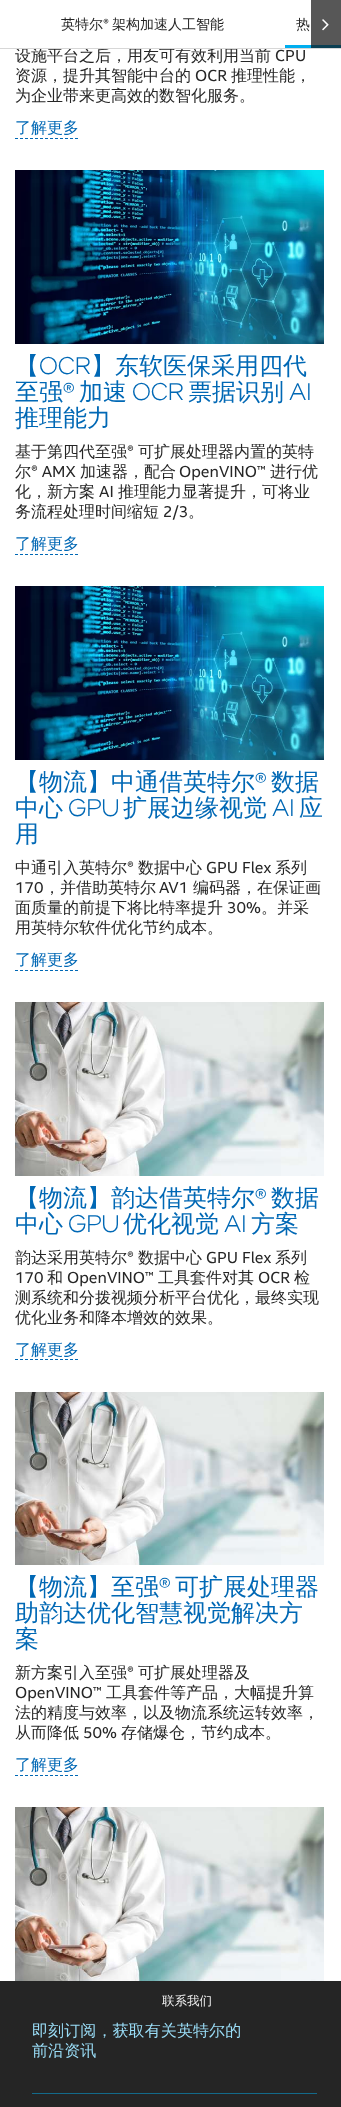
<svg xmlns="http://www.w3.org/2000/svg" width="341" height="2107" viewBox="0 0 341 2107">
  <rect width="100%" height="100%" fill="#ffffff"/>
  <text x="15" y="61" font-family="WenQuanYi Zen Hei" font-size="16" font-weight="500" fill="#262626">设施平台之后，用友可有效利用当前</text>
  <rect x="34" y="47" width="214" height="1" fill="#ffffff"/>
  <rect x="0" y="48" width="341" height="1" fill="#d7d7d7"/>
  <text x="61" y="29" font-family="WenQuanYi Zen Hei" font-size="14" font-weight="500" fill="#262626">英特尔</text>
  <text x="103" y="29" font-family="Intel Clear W" font-size="14" fill="#262626">®</text>
  <text x="112" y="29" font-family="WenQuanYi Zen Hei" font-size="14" font-weight="500" fill="#262626">架构加速人工智能</text>
  <rect x="285" y="45" width="56" height="3" fill="#00aeef"/>
  <text x="296" y="29" font-family="WenQuanYi Zen Hei" font-size="14" font-weight="500" fill="#262626">热</text>
  <rect x="311" y="0" width="30" height="48" fill="#0f0f0f" fill-opacity="0.7"/>
  <image x="322" y="19" width="7" height="12" href="img1.png"/>
  <text x="275" y="61" font-family="Intel Clear W" font-size="16" fill="#262626">CPU</text>
  <text x="15" y="81" font-family="WenQuanYi Zen Hei" font-size="16" font-weight="500" fill="#262626">资源，提升其智能中台的</text>
  <text x="195" y="81" font-family="Intel Clear W" font-size="16" fill="#262626">OCR</text>
  <text x="231" y="81" font-family="WenQuanYi Zen Hei" font-size="16" font-weight="500" fill="#262626">推理性能，</text>
  <text x="15" y="101" font-family="WenQuanYi Zen Hei" font-size="16" font-weight="500" fill="#262626">为企业带来更高效的数智化服务。</text>
  <text x="15" y="133" font-family="WenQuanYi Zen Hei" font-size="16" font-weight="500" fill="#0068b5">了解更多</text>
  <path d="M15 138.5H79" fill="none" stroke="#0068b5" stroke-dasharray="3 2"/>
  <image x="15" y="170" width="309" height="174" href="img2.png"/>
  <text x="15" y="374" font-family="WenQuanYi Zen Hei" font-size="24" font-weight="500" fill="#0068b5">【</text>
  <text x="39" y="374" font-family="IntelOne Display" font-size="24" font-weight="300" fill="#0068b5">OCR</text>
  <text x="91" y="374" font-family="WenQuanYi Zen Hei" font-size="24" font-weight="500" fill="#0068b5">】东软医保采用四代</text>
  <text x="15" y="400" font-family="WenQuanYi Zen Hei" font-size="24" font-weight="500" fill="#0068b5">至强</text>
  <text x="63" y="400" font-family="IntelOne Display" font-size="24" font-weight="300" fill="#0068b5">®</text>
  <text x="79" y="400" font-family="WenQuanYi Zen Hei" font-size="24" font-weight="500" fill="#0068b5">加速</text>
  <text x="132" y="400" font-family="IntelOne Display" font-size="24" font-weight="300" fill="#0068b5">OCR</text>
  <text x="188" y="400" font-family="WenQuanYi Zen Hei" font-size="24" font-weight="500" fill="#0068b5">票据识别</text>
  <text x="289" y="400" font-family="IntelOne Display" font-size="24" font-weight="300" fill="#0068b5">AI</text>
  <text x="15" y="426" font-family="WenQuanYi Zen Hei" font-size="24" font-weight="500" fill="#0068b5">推理能力</text>
  <text x="15" y="457" font-family="WenQuanYi Zen Hei" font-size="16" font-weight="500" fill="#262626">基于第四代至强</text>
  <text x="127" y="457" font-family="Intel Clear W" font-size="16" fill="#262626">®</text>
  <text x="138" y="457" font-family="WenQuanYi Zen Hei" font-size="16" font-weight="500" fill="#262626">可扩展处理器内置的英特</text>
  <text x="15" y="477" font-family="WenQuanYi Zen Hei" font-size="16" font-weight="500" fill="#262626">尔</text>
  <text x="31" y="477" font-family="Intel Clear W" font-size="16" fill="#262626">® AMX</text>
  <text x="80" y="477" font-family="WenQuanYi Zen Hei" font-size="16" font-weight="500" fill="#262626">加速器，配合</text>
  <text x="179" y="477" font-family="Intel Clear W" font-size="16" fill="#262626">OpenVINO™</text>
  <text x="270" y="477" font-family="WenQuanYi Zen Hei" font-size="16" font-weight="500" fill="#262626">进行优</text>
  <text x="15" y="497" font-family="WenQuanYi Zen Hei" font-size="16" font-weight="500" fill="#262626">化，新方案</text>
  <text x="99" y="497" font-family="Intel Clear W" font-size="16" fill="#262626">AI</text>
  <text x="118" y="497" font-family="WenQuanYi Zen Hei" font-size="16" font-weight="500" fill="#262626">推理能力显著提升，可将业</text>
  <text x="15" y="517" font-family="WenQuanYi Zen Hei" font-size="16" font-weight="500" fill="#262626">务流程处理时间缩短</text>
  <text x="163" y="517" font-family="Intel Clear W" font-size="16" fill="#262626">2/3</text>
  <text x="188" y="517" font-family="WenQuanYi Zen Hei" font-size="16" font-weight="500" fill="#262626">。</text>
  <text x="15" y="549" font-family="WenQuanYi Zen Hei" font-size="16" font-weight="500" fill="#0068b5">了解更多</text>
  <path d="M15 554.5H79" fill="none" stroke="#0068b5" stroke-dasharray="3 2"/>
  <image x="15" y="586" width="309" height="174" href="img2.png"/>
  <text x="15" y="790" font-family="WenQuanYi Zen Hei" font-size="24" font-weight="500" fill="#0068b5">【物流】中通借英特尔</text>
  <text x="255" y="790" font-family="IntelOne Display" font-size="24" font-weight="300" fill="#0068b5">®</text>
  <text x="271" y="790" font-family="WenQuanYi Zen Hei" font-size="24" font-weight="500" fill="#0068b5">数据</text>
  <text x="15" y="816" font-family="WenQuanYi Zen Hei" font-size="24" font-weight="500" fill="#0068b5">中心</text>
  <text x="68" y="816" font-family="IntelOne Display" font-size="24" font-weight="300" fill="#0068b5">GPU</text>
  <text x="123" y="816" font-family="WenQuanYi Zen Hei" font-size="24" font-weight="500" fill="#0068b5">扩展边缘视觉</text>
  <text x="272" y="816" font-family="IntelOne Display" font-size="24" font-weight="300" fill="#0068b5">AI</text>
  <text x="299" y="816" font-family="WenQuanYi Zen Hei" font-size="24" font-weight="500" fill="#0068b5">应</text>
  <text x="15" y="842" font-family="WenQuanYi Zen Hei" font-size="24" font-weight="500" fill="#0068b5">用</text>
  <text x="15" y="873" font-family="WenQuanYi Zen Hei" font-size="16" font-weight="500" fill="#262626">中通引入英特尔</text>
  <text x="127" y="873" font-family="Intel Clear W" font-size="16" fill="#262626">®</text>
  <text x="138" y="873" font-family="WenQuanYi Zen Hei" font-size="16" font-weight="500" fill="#262626">数据中心</text>
  <text x="206" y="873" font-family="Intel Clear W" font-size="16" fill="#262626">GPU Flex</text>
  <text x="275" y="873" font-family="WenQuanYi Zen Hei" font-size="16" font-weight="500" fill="#262626">系列</text>
  <text x="15" y="893" font-family="Intel Clear W" font-size="16" fill="#262626">170</text>
  <text x="44" y="893" font-family="WenQuanYi Zen Hei" font-size="16" font-weight="500" fill="#262626">，并借助英特尔</text>
  <text x="159" y="893" font-family="Intel Clear W" font-size="16" fill="#262626">AV1</text>
  <text x="193" y="893" font-family="WenQuanYi Zen Hei" font-size="16" font-weight="500" fill="#262626">编码器，在保证画</text>
  <text x="15" y="913" font-family="WenQuanYi Zen Hei" font-size="16" font-weight="500" fill="#262626">面质量的前提下将比特率提升</text>
  <text x="227" y="913" font-family="Intel Clear W" font-size="16" fill="#262626">30%</text>
  <text x="261" y="913" font-family="WenQuanYi Zen Hei" font-size="16" font-weight="500" fill="#262626">。并采</text>
  <text x="15" y="933" font-family="WenQuanYi Zen Hei" font-size="16" font-weight="500" fill="#262626">用英特尔软件优化节约成本。</text>
  <text x="15" y="965" font-family="WenQuanYi Zen Hei" font-size="16" font-weight="500" fill="#0068b5">了解更多</text>
  <path d="M15 970.5H79" fill="none" stroke="#0068b5" stroke-dasharray="3 2"/>
  <image x="15" y="1002" width="309" height="174" href="img3.png"/>
  <text x="15" y="1206" font-family="WenQuanYi Zen Hei" font-size="24" font-weight="500" fill="#0068b5">【物流】韵达借英特尔</text>
  <text x="255" y="1206" font-family="IntelOne Display" font-size="24" font-weight="300" fill="#0068b5">®</text>
  <text x="271" y="1206" font-family="WenQuanYi Zen Hei" font-size="24" font-weight="500" fill="#0068b5">数据</text>
  <text x="15" y="1232" font-family="WenQuanYi Zen Hei" font-size="24" font-weight="500" fill="#0068b5">中心</text>
  <text x="68" y="1232" font-family="IntelOne Display" font-size="24" font-weight="300" fill="#0068b5">GPU</text>
  <text x="123" y="1232" font-family="WenQuanYi Zen Hei" font-size="24" font-weight="500" fill="#0068b5">优化视觉</text>
  <text x="224" y="1232" font-family="IntelOne Display" font-size="24" font-weight="300" fill="#0068b5">AI</text>
  <text x="251" y="1232" font-family="WenQuanYi Zen Hei" font-size="24" font-weight="500" fill="#0068b5">方案</text>
  <text x="15" y="1263" font-family="WenQuanYi Zen Hei" font-size="16" font-weight="500" fill="#262626">韵达采用英特尔</text>
  <text x="127" y="1263" font-family="Intel Clear W" font-size="16" fill="#262626">®</text>
  <text x="138" y="1263" font-family="WenQuanYi Zen Hei" font-size="16" font-weight="500" fill="#262626">数据中心</text>
  <text x="206" y="1263" font-family="Intel Clear W" font-size="16" fill="#262626">GPU Flex</text>
  <text x="275" y="1263" font-family="WenQuanYi Zen Hei" font-size="16" font-weight="500" fill="#262626">系列</text>
  <text x="15" y="1283" font-family="Intel Clear W" font-size="16" fill="#262626">170</text>
  <text x="47" y="1283" font-family="WenQuanYi Zen Hei" font-size="16" font-weight="500" fill="#262626">和</text>
  <text x="67" y="1283" font-family="Intel Clear W" font-size="16" fill="#262626">OpenVINO™</text>
  <text x="158" y="1283" font-family="WenQuanYi Zen Hei" font-size="16" font-weight="500" fill="#262626">工具套件对其</text>
  <text x="258" y="1283" font-family="Intel Clear W" font-size="16" fill="#262626">OCR</text>
  <text x="294" y="1283" font-family="WenQuanYi Zen Hei" font-size="16" font-weight="500" fill="#262626">检</text>
  <text x="15" y="1303" font-family="WenQuanYi Zen Hei" font-size="16" font-weight="500" fill="#262626">测系统和分拨视频分析平台优化，最终实现</text>
  <text x="15" y="1323" font-family="WenQuanYi Zen Hei" font-size="16" font-weight="500" fill="#262626">优化业务和降本增效的效果。</text>
  <text x="15" y="1355" font-family="WenQuanYi Zen Hei" font-size="16" font-weight="500" fill="#0068b5">了解更多</text>
  <path d="M15 1359.5H79" fill="none" stroke="#0068b5" stroke-dasharray="3 2"/>
  <image x="15" y="1392" width="309" height="173" href="img4.png"/>
  <text x="15" y="1595" font-family="WenQuanYi Zen Hei" font-size="24" font-weight="500" fill="#0068b5">【物流】至强</text>
  <text x="159" y="1595" font-family="IntelOne Display" font-size="24" font-weight="300" fill="#0068b5">®</text>
  <text x="175" y="1595" font-family="WenQuanYi Zen Hei" font-size="24" font-weight="500" fill="#0068b5">可扩展处理器</text>
  <text x="15" y="1621" font-family="WenQuanYi Zen Hei" font-size="24" font-weight="500" fill="#0068b5">助韵达优化智慧视觉解决方</text>
  <text x="15" y="1647" font-family="WenQuanYi Zen Hei" font-size="24" font-weight="500" fill="#0068b5">案</text>
  <text x="15" y="1678" font-family="WenQuanYi Zen Hei" font-size="16" font-weight="500" fill="#262626">新方案引入至强</text>
  <text x="127" y="1678" font-family="Intel Clear W" font-size="16" fill="#262626">®</text>
  <text x="138" y="1678" font-family="WenQuanYi Zen Hei" font-size="16" font-weight="500" fill="#262626">可扩展处理器及</text>
  <text x="15" y="1698" font-family="Intel Clear W" font-size="16" fill="#262626">OpenVINO™</text>
  <text x="106" y="1698" font-family="WenQuanYi Zen Hei" font-size="16" font-weight="500" fill="#262626">工具套件等产品，大幅提升算</text>
  <text x="15" y="1718" font-family="WenQuanYi Zen Hei" font-size="16" font-weight="500" fill="#262626">法的精度与效率，以及物流系统运转效率，</text>
  <text x="15" y="1738" font-family="WenQuanYi Zen Hei" font-size="16" font-weight="500" fill="#262626">从而降低</text>
  <text x="83" y="1738" font-family="Intel Clear W" font-size="16" fill="#262626">50%</text>
  <text x="121" y="1738" font-family="WenQuanYi Zen Hei" font-size="16" font-weight="500" fill="#262626">存储爆仓，节约成本。</text>
  <text x="15" y="1770" font-family="WenQuanYi Zen Hei" font-size="16" font-weight="500" fill="#0068b5">了解更多</text>
  <path d="M15 1775.5H79" fill="none" stroke="#0068b5" stroke-dasharray="3 2"/>
  <image x="15" y="1807" width="309" height="174" href="img3.png"/>
  <rect x="0" y="1981" width="341" height="126" fill="#252525"/>
  <text x="162" y="2005" font-family="WenQuanYi Zen Hei" font-size="12.5" font-weight="500" fill="#f3f3f3">联系我们</text>
  <text x="32" y="2036" font-family="WenQuanYi Zen Hei" font-size="16" font-weight="500" letter-spacing="0.1" fill="#9addf7">即刻订阅，获取有关英特尔的</text>
  <text x="32" y="2056" font-family="WenQuanYi Zen Hei" font-size="16" font-weight="500" letter-spacing="0.1" fill="#9addf7">前沿资讯</text>
  <rect x="32" y="2093" width="285" height="1" fill="#136a8a"/>
</svg>
